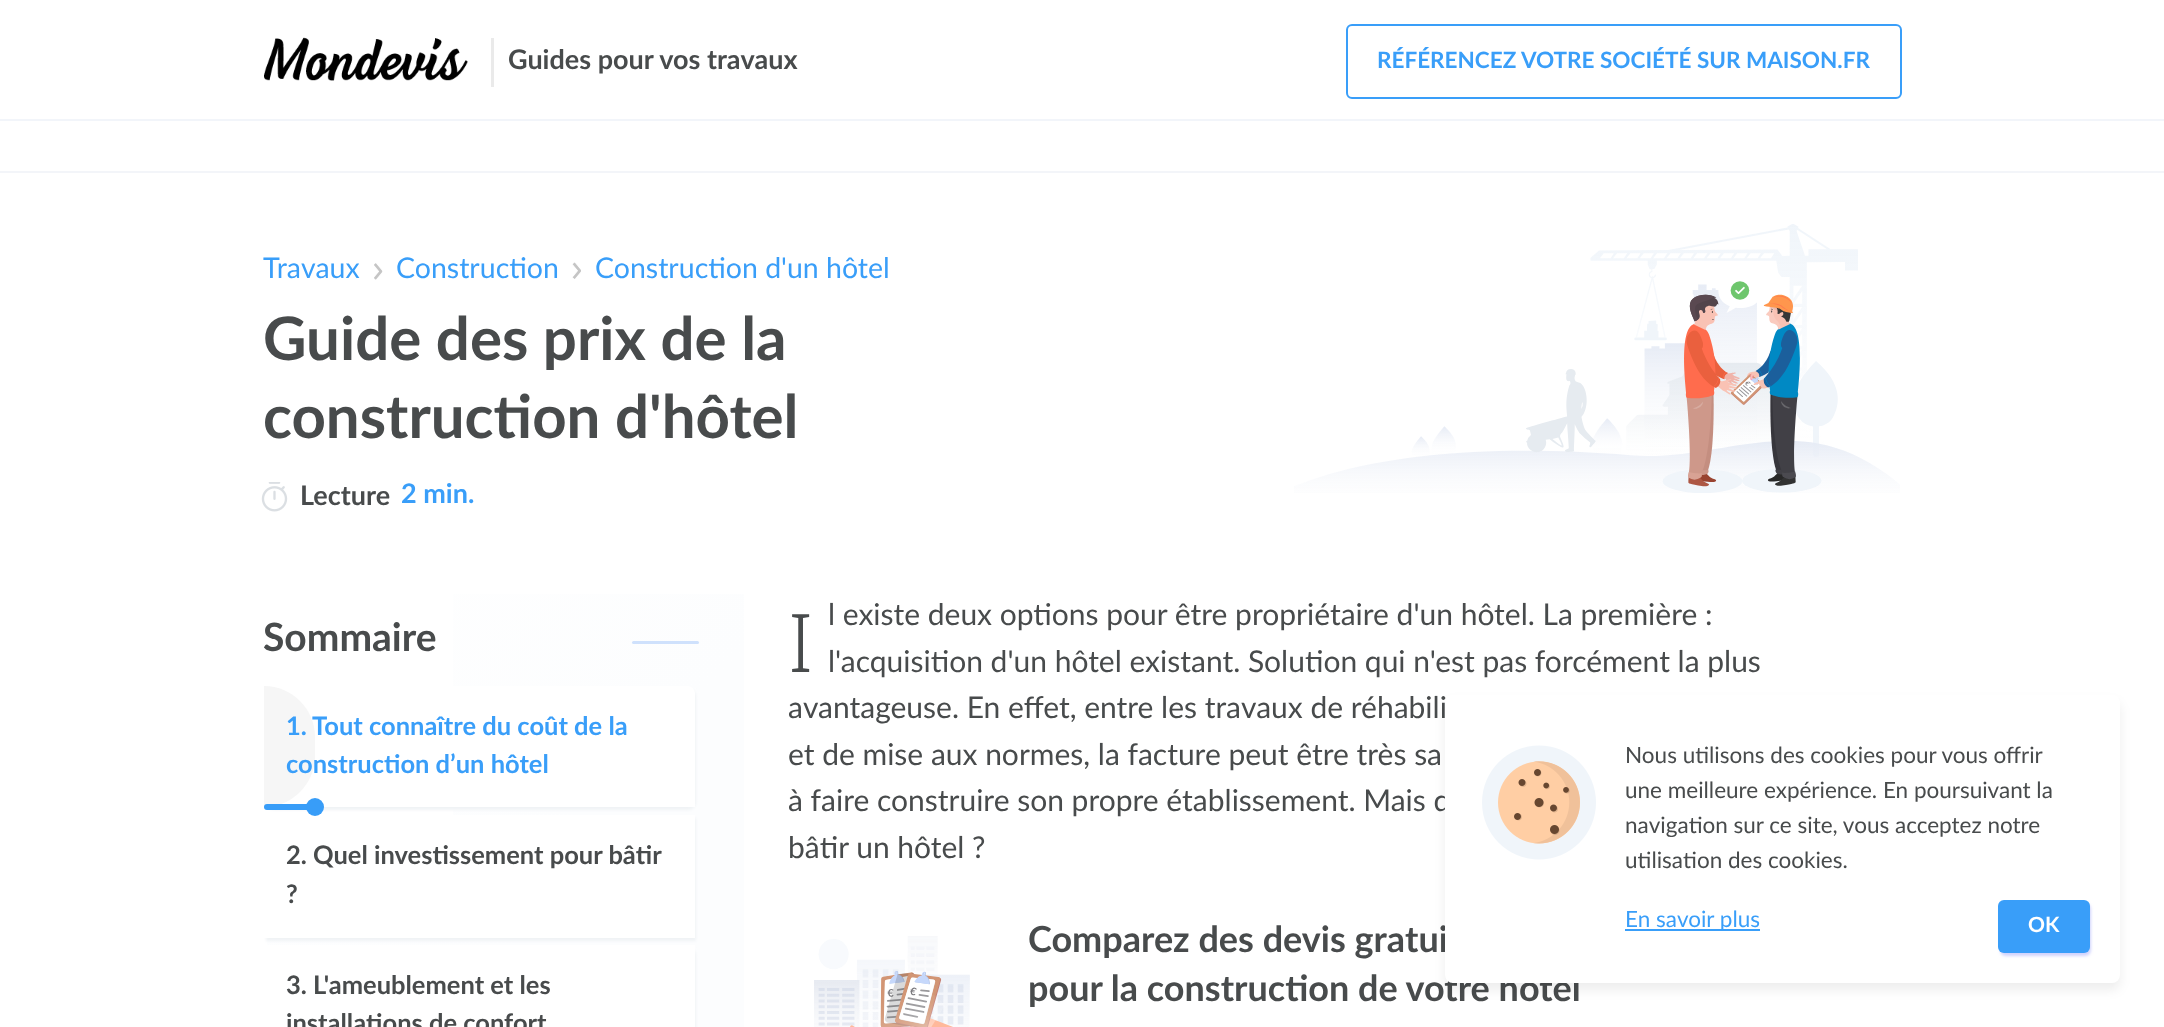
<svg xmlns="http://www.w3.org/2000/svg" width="2164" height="1027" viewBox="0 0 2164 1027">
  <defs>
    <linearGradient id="g1" gradientUnits="userSpaceOnUse" x1="288" y1="525" x2="675" y2="913"><stop offset="0" stop-color="#ffffff"/><stop offset="0.75" stop-color="#fcfdfe"/></linearGradient>
    <filter id="blur1" x="-50%" y="-200%" width="200%" height="500%"><feGaussianBlur stdDeviation="1.5"/></filter>
    <linearGradient id="g2" gradientUnits="userSpaceOnUse" x1="163" y1="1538" x2="800" y2="901"><stop offset="0" stop-color="#ffffff"/><stop offset="0.75" stop-color="#fcfdfe"/></linearGradient>
    <filter id="blur2" x="-50%" y="-200%" width="200%" height="500%"><feGaussianBlur stdDeviation="5.5"/></filter>
  </defs>
  <rect width="100%" height="100%" fill="#ffffff"/>
  <rect x="0" y="119" width="2164" height="2" fill="#f2f5fa"/>
  <image x="264" y="37" width="204" height="44" href="img1.png"/>
  <rect x="491" y="38" width="3" height="49" fill="#eaeaea"/>
  <text x="508" y="69" font-family="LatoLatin" font-size="27" font-weight="bold" fill="#484b4c">Guides pour vos travaux</text>
  <rect x="1347" y="25" width="554" height="73" rx="5" fill="none" stroke="#399ef9" stroke-width="2"/>
  <text x="1377" y="68" font-family="LatoLatin" font-size="22.5" font-weight="bold" fill="#399ef9">RÉFÉRENCEZ VOTRE SOCIÉTÉ SUR MAISON.FR</text>
  <rect x="0" y="171" width="2164" height="2" fill="#f3f5f9"/>
  <text x="263" y="278" font-family="LatoLatin" font-size="28.5" fill="#399ef9">Travaux</text>
  <image x="374" y="263" width="9" height="17" href="img2.png"/>
  <text x="396" y="278" font-family="LatoLatin" font-size="28.5" fill="#399ef9">Construction</text>
  <image x="572" y="262" width="9" height="17" href="img3.png"/>
  <text x="595" y="278" font-family="LatoLatin" font-size="28.5" fill="#399ef9">Construction d'un hôtel</text>
  <text x="263" y="360" font-family="LatoLatin" font-size="60" font-weight="bold" fill="#484b4c">Guide des prix de la</text>
  <text x="263" y="438" font-family="LatoLatin" font-size="60" font-weight="bold" fill="#484b4c">construction d'hôtel</text>
  <image x="261" y="482" width="27" height="30" href="img4.png"/>
  <text x="300" y="505" font-family="LatoLatin" font-size="27" font-weight="bold" fill="#484b4c">Lecture</text>
  <text x="401" y="503" font-family="LatoLatin" font-size="27" font-weight="bold" fill="#399ef9">2 min.</text>
  <image x="1294" y="224" width="606" height="269" href="img5.png"/>
  <text x="263" y="651" font-family="LatoLatin" font-size="39" font-weight="bold" fill="#484b4c">Sommaire</text>
  <rect x="453" y="594" width="291" height="251" fill="url(#g1)"/>
  <rect x="632" y="641" width="67" height="3" rx="1.5" fill="#cfe1fc"/>
  <rect x="266" y="689" width="430" height="121" rx="8" fill="#f0f3f5" filter="url(#blur1)"/>
  <path d="M272 686H687C691.5 686 695 689.5 695 694V807H264V694C264 689.5 267.5 686 272 686Z" fill="#ffffff"/>
  <path d="M264 686C292 686 315 709 315 737V756C315 784 292 807 264 807Z" fill="#f6f6f6"/>
  <text x="286" y="735" font-family="LatoLatin" font-size="25.5" font-weight="bold" fill="#399ef9">1.</text>
  <text x="312" y="735" font-family="LatoLatin" font-size="25.5" font-weight="bold" fill="#399ef9">Tout connaître du coût de la</text>
  <text x="286" y="773" font-family="LatoLatin" font-size="25.5" font-weight="bold" fill="#399ef9">construction d’un hôtel</text>
  <rect x="264" y="804" width="51" height="6" rx="3" fill="#389df8"/>
  <rect x="267" y="845" width="477" height="182" fill="url(#g2)"/>
  <rect x="266" y="818" width="430" height="123" fill="#f0f3f5" filter="url(#blur1)"/>
  <rect x="264" y="815" width="431" height="123" fill="#ffffff"/>
  <circle cx="315" cy="807" r="9" fill="#389df8"/>
  <text x="286" y="864" font-family="LatoLatin" font-size="25.5" font-weight="bold" fill="#484b4c">2.</text>
  <text x="313" y="864" font-family="LatoLatin" font-size="25.5" font-weight="bold" fill="#484b4c">Quel investissement pour bâtir</text>
  <text x="286" y="903" font-family="LatoLatin" font-size="25.5" font-weight="bold" fill="#484b4c">?</text>
  <rect x="266" y="948" width="430" height="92" rx="8" fill="#f0f3f5" filter="url(#blur1)"/>
  <rect x="264" y="945" width="431" height="82" fill="#ffffff"/>
  <text x="286" y="994" font-family="LatoLatin" font-size="25.5" font-weight="bold" fill="#484b4c">3. L'ameublement et les</text>
  <text x="286" y="1032" font-family="LatoLatin" font-size="25.5" font-weight="bold" fill="#484b4c">installations de confort</text>
  <text x="788" y="672" font-family="Noto Sans" font-size="81" font-weight="300" fill="#484b4c">I</text>
  <text x="828" y="625" font-family="LatoLatin" font-size="30" fill="#484b4c">l existe deux options pour être propriétaire d'un hôtel. La première :</text>
  <text x="828" y="672" font-family="LatoLatin" font-size="30" fill="#484b4c">l'acquisition d'un hôtel existant. Solution qui n'est pas forcément la plus</text>
  <text x="788" y="718" font-family="LatoLatin" font-size="30" fill="#484b4c">avantageuse. En effet, entre les travaux de réhabili</text>
  <text x="788" y="765" font-family="LatoLatin" font-size="30" fill="#484b4c">et de mise aux normes, la facture peut être très sa</text>
  <text x="788" y="811" font-family="LatoLatin" font-size="30" fill="#484b4c">à faire construire son propre établissement. Mais q</text>
  <text x="788" y="858" font-family="LatoLatin" font-size="30" fill="#484b4c">bâtir un hôtel ?</text>
  <image x="814" y="936" width="156" height="91" href="img6.png"/>
  <text x="1028" y="952" font-family="LatoLatin" font-size="36" font-weight="bold" fill="#484b4c">Comparez des devis gratui</text>
  <text x="1028" y="1001" font-family="LatoLatin" font-size="36" font-weight="bold" fill="#484b4c">pour la construction de votre hôtel</text>
  <rect x="1445" y="702" width="675" height="288" rx="8" fill="#000000" fill-opacity="0.07" filter="url(#blur2)"/>
  <rect x="1445" y="695" width="675" height="288" rx="8" fill="#ffffff"/>
  <image x="1482" y="745" width="114" height="115" href="img7.png"/>
  <text x="1625" y="763" font-family="LatoLatin" font-size="22.5" fill="#484b4c">Nous utilisons des cookies pour vous offrir</text>
  <text x="1625" y="798" font-family="LatoLatin" font-size="22.5" fill="#484b4c">une meilleure expérience. En poursuivant la</text>
  <text x="1625" y="833" font-family="LatoLatin" font-size="22.5" fill="#484b4c">navigation sur ce site, vous acceptez notre</text>
  <text x="1625" y="868" font-family="LatoLatin" font-size="22.5" fill="#484b4c">utilisation des cookies.</text>
  <rect x="1625" y="929" width="135" height="2" fill="#399ef9"/>
  <text x="1625" y="927" font-family="LatoLatin" font-size="22.5" fill="#399ef9">En savoir plus</text>
  <rect x="2000" y="903" width="91" height="53" rx="6" fill="#d0d3fd" filter="url(#blur1)"/>
  <rect x="1998" y="900" width="92" height="53" rx="6" fill="#399ef9"/>
  <text x="2028" y="932" font-family="LatoLatin" font-size="21" font-weight="bold" fill="#ffffff">OK</text>
</svg>
